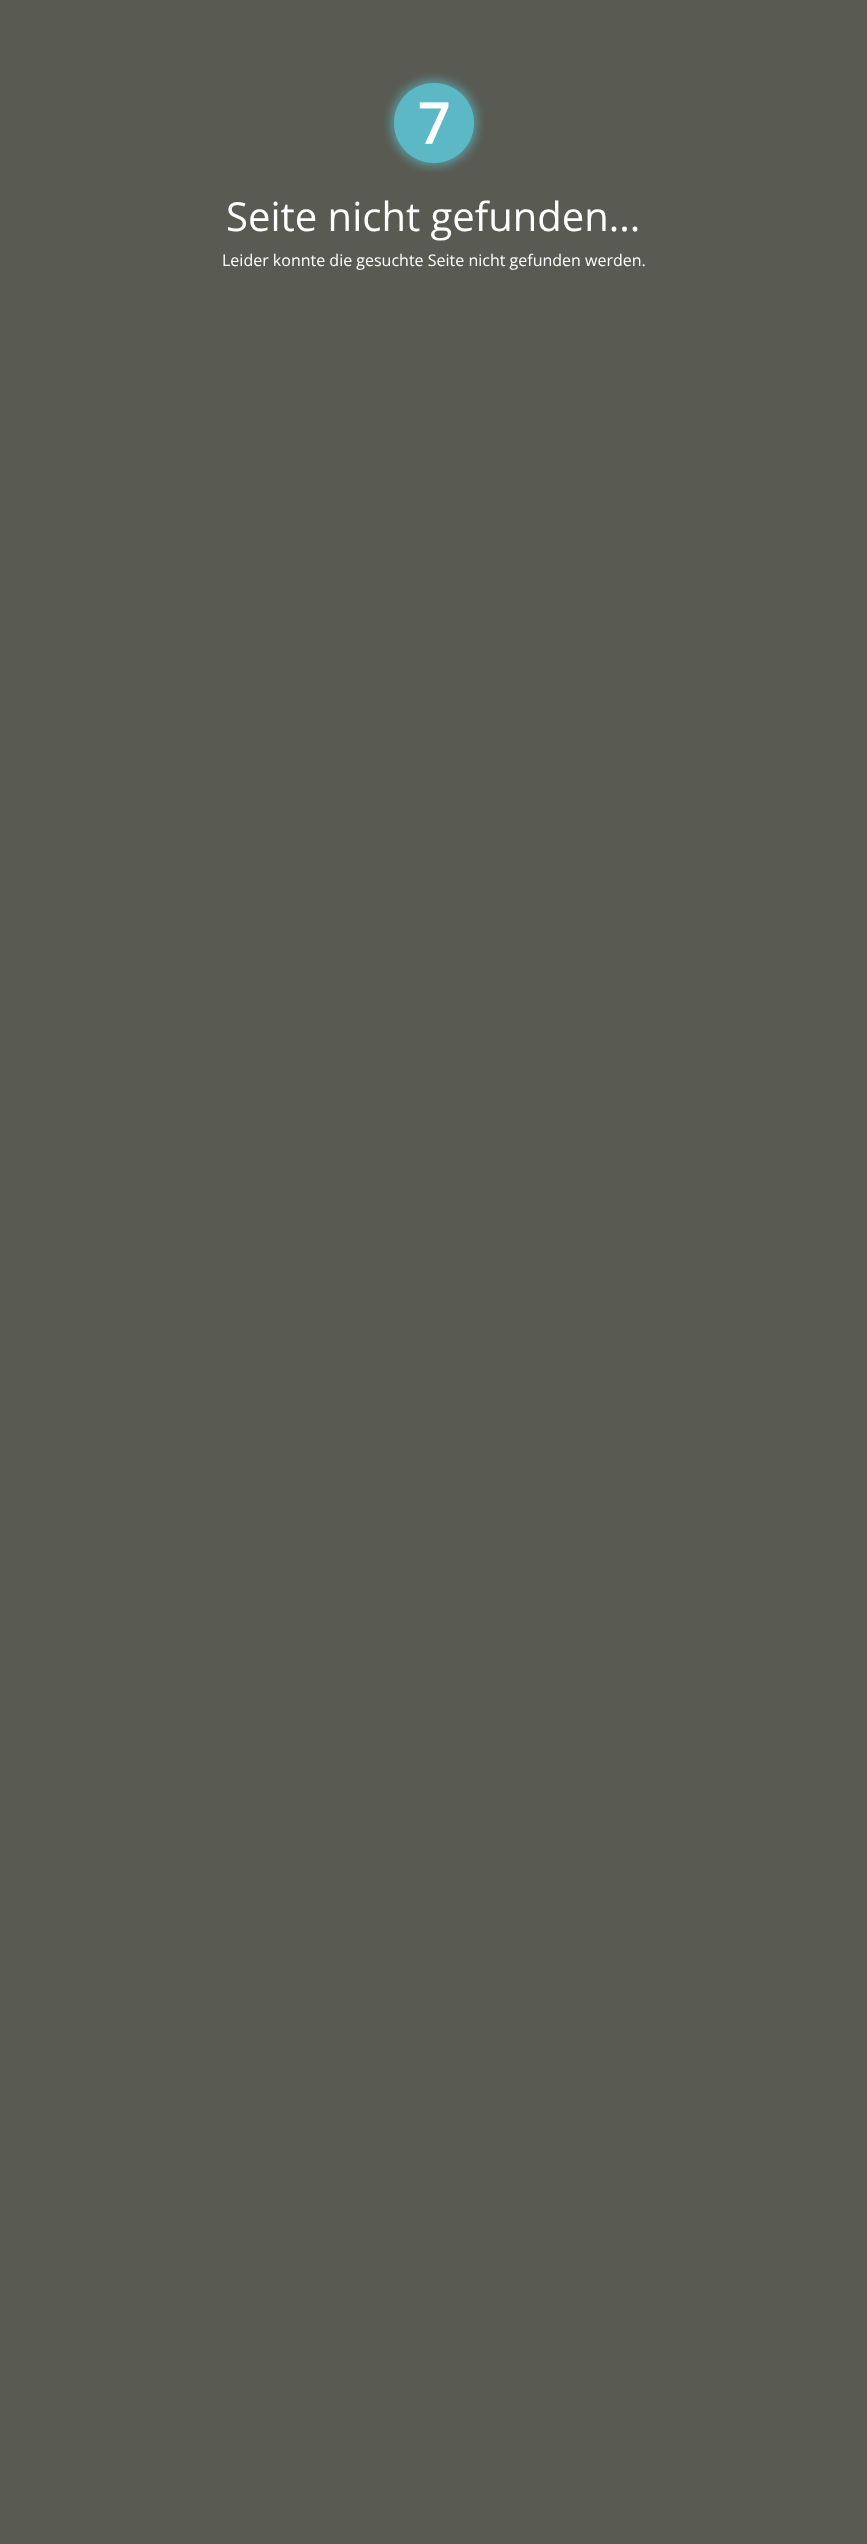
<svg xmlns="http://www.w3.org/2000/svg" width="867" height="2544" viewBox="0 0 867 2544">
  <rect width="100%" height="100%" fill="#595a51"/>
  <image x="384" y="73" width="100" height="99" href="img1.png"/>
  <text x="226" y="231" font-family="Open Sans" font-size="40" fill="#ffffff">Seite nicht gefunden...</text>
  <text x="222" y="266" font-family="Open Sans" font-size="16" fill="#ffffff">Leider konnte die gesuchte Seite nicht gefunden werden.</text>
</svg>
